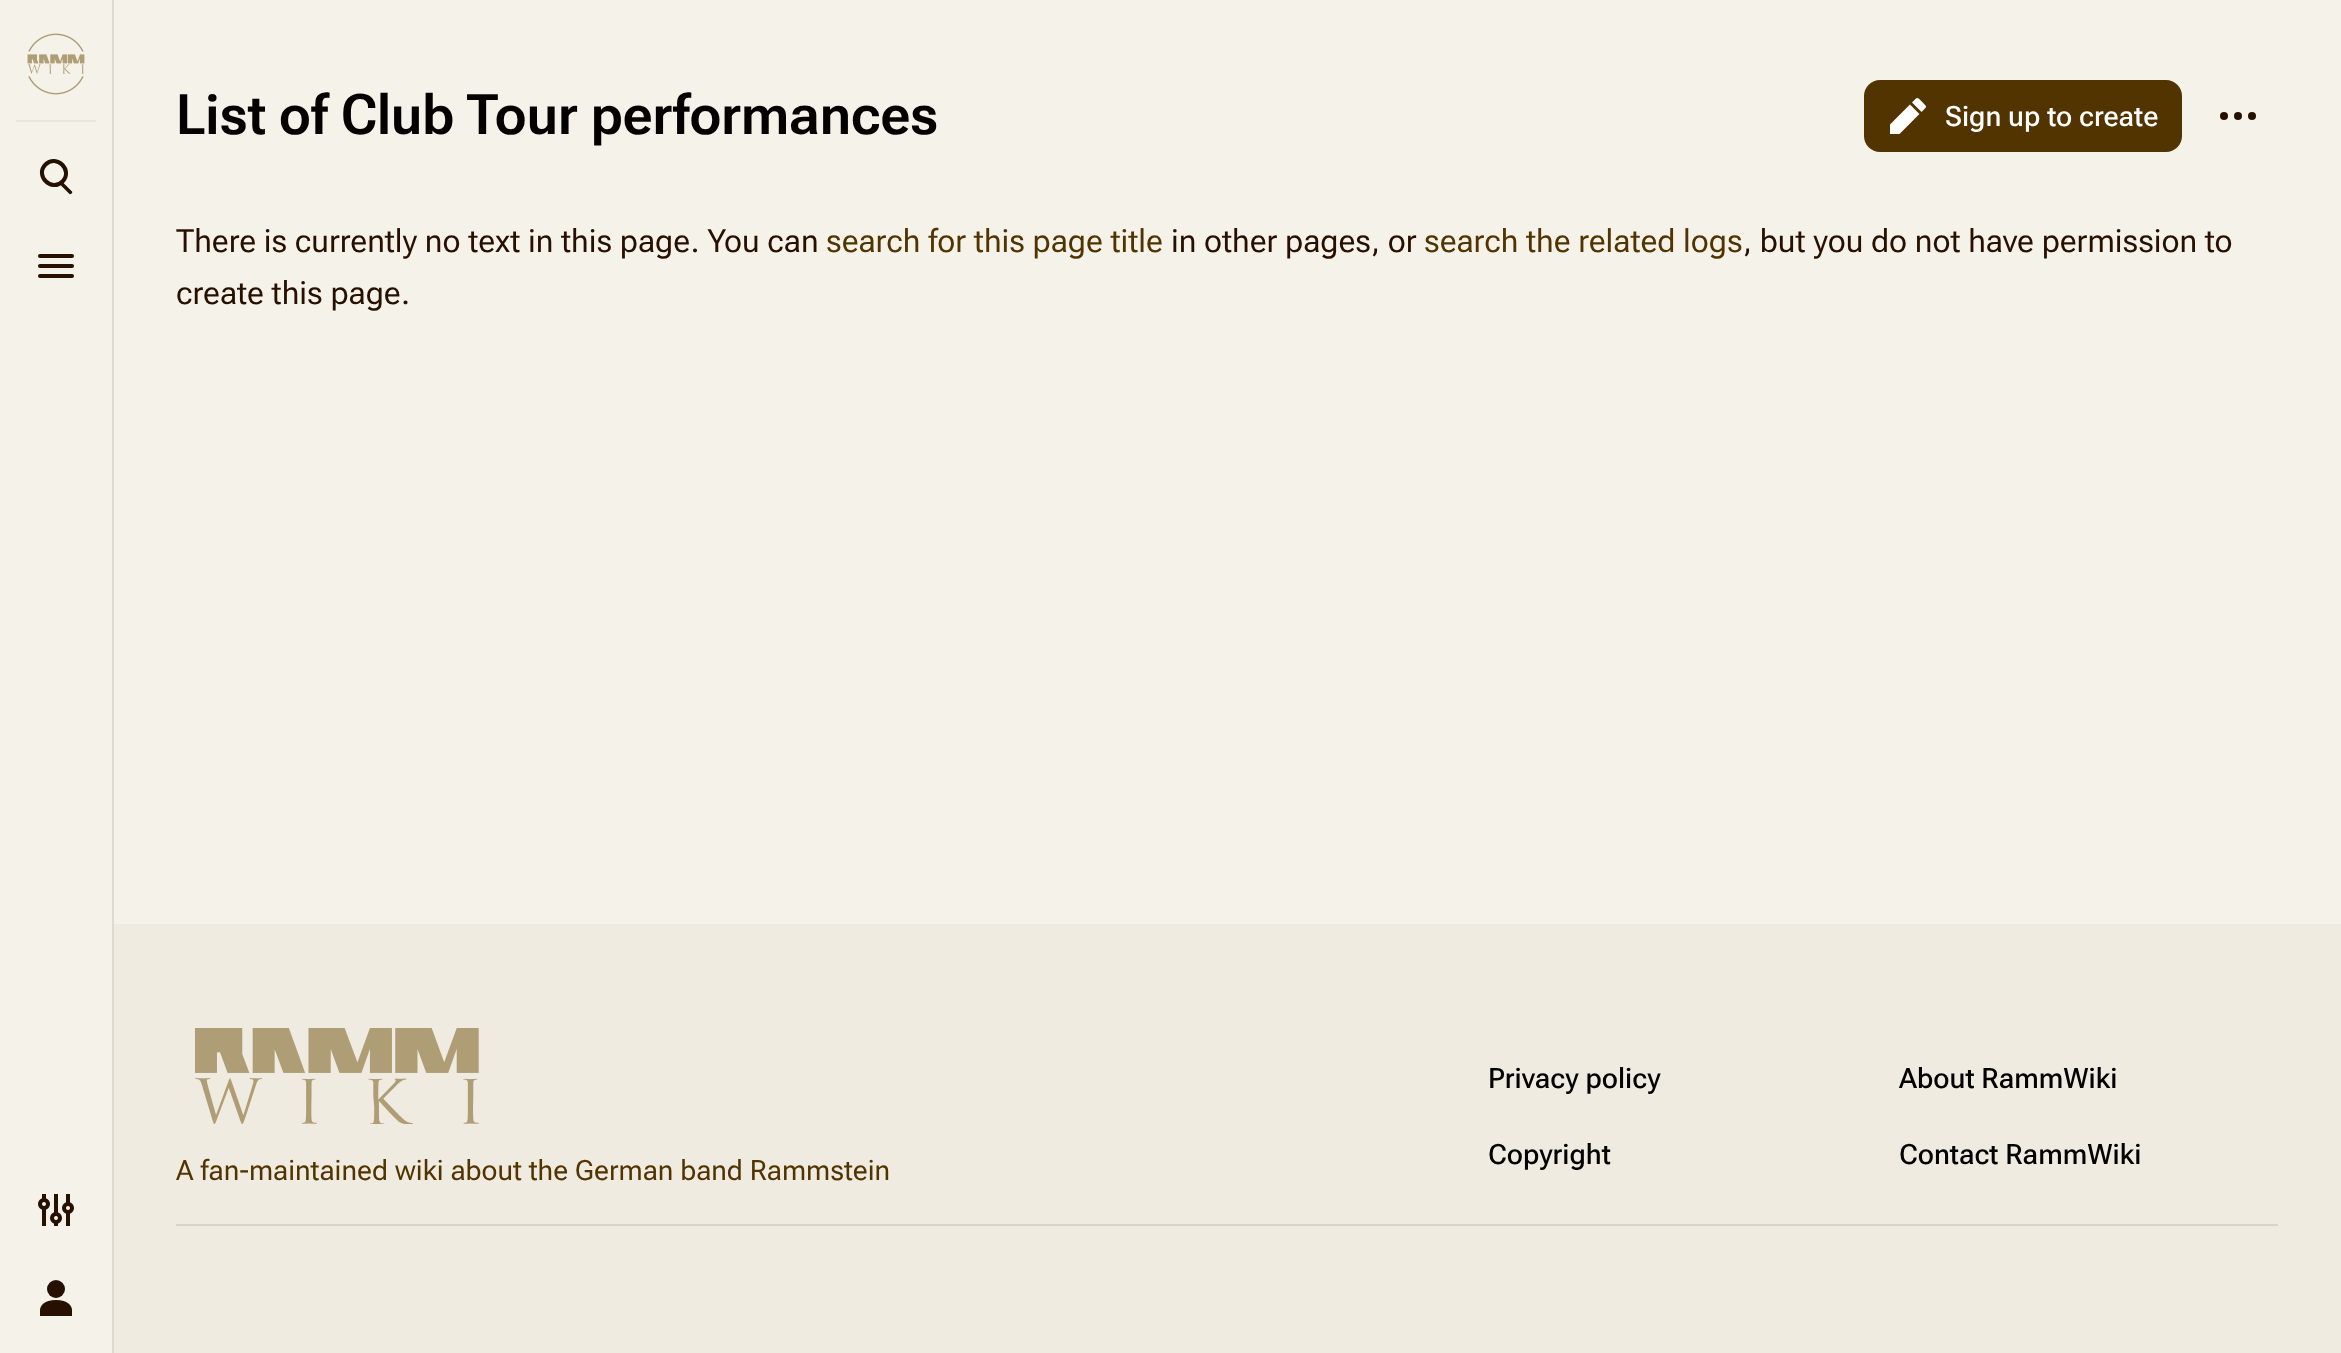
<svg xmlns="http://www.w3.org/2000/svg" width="2341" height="1353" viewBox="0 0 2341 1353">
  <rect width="100%" height="100%" fill="#f5f2ea"/>
  <rect x="112" y="0" width="2" height="1353" fill="#dddad3"/>
  <rect x="16" y="120" width="80" height="2" fill="#e9e6de"/>
  <image x="27" y="33" width="58" height="62" href="img1.png"/>
  <path d="M60.5 182.5C61 181.5 62.5 181.5 63 182.5L71.5 191C72.5 191.5 72.5 193 71.5 193.5C71 194.5 69.5 194.5 69 193.5L60.5 185C59.5 184.5 59.5 183 60.5 182.5Z" fill="#271000"/>
  <path d="M45.5 164.5C56.5 153.5 73.5 170.5 62.5 181.5C51.5 192.5 34.5 175.5 45.5 164.5Z" fill="none" stroke="#271000" stroke-width="4"/>
  <rect x="38" y="254" width="36" height="4" rx="2" fill="#271000"/>
  <rect x="38" y="264" width="36" height="4" rx="2" fill="#271000"/>
  <rect x="38" y="274" width="36" height="4" rx="2" fill="#271000"/>
  <image x="38" y="1194" width="36" height="32" href="img2.png"/>
  <image x="40" y="1280" width="32" height="36" href="img3.png"/>
  <text x="176" y="134" font-family="Roboto Flex" font-size="56" font-weight="600" fill="#030000">List of Club Tour performances</text>
  <rect x="1864" y="80" width="318" height="72" rx="16" fill="#523400"/>
  <image x="1890" y="98" width="36" height="36" href="img4.png"/>
  <text x="1945" y="126" font-family="Roboto Flex" font-size="28" font-weight="500" fill="#ffffff">Sign up to create</text>
  <image x="2220" y="112" width="36" height="8" href="img5.png"/>
  <text x="176" y="252" font-family="Roboto Flex" font-size="32" fill="#271000">There is currently no text in this page. You can</text>
  <text x="826" y="252" font-family="Roboto Flex" font-size="32" fill="#523400">search for this page title</text>
  <text x="1171" y="252" font-family="Roboto Flex" font-size="32" fill="#271000">in other pages, or</text>
  <text x="1424" y="252" font-family="Roboto Flex" font-size="32" fill="#523400">search the related logs</text>
  <text x="1743" y="252" font-family="Roboto Flex" font-size="32" fill="#271000">, but you do not have permission to</text>
  <text x="176" y="304" font-family="Roboto Flex" font-size="32" fill="#271000">create this page.</text>
  <rect x="114" y="924" width="2227" height="429" fill="#efebe0"/>
  <image x="195" y="1028" width="284" height="96" href="img6.png"/>
  <text x="176" y="1180" font-family="'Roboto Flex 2'" font-size="28" fill="#523400">A fan-maintained wiki about the German band Rammstein</text>
  <text x="1488" y="1088" font-family="Roboto Flex" font-size="28" font-weight="500" fill="#030000">Privacy policy</text>
  <text x="1899" y="1088" font-family="Roboto Flex" font-size="28" font-weight="500" fill="#030000">About RammWiki</text>
  <text x="1488" y="1164" font-family="Roboto Flex" font-size="28" font-weight="500" fill="#030000">Copyright</text>
  <text x="1899" y="1164" font-family="Roboto Flex" font-size="28" font-weight="500" fill="#030000">Contact RammWiki</text>
  <rect x="176" y="1224" width="2102" height="2" fill="#d7d4ca"/>
</svg>
